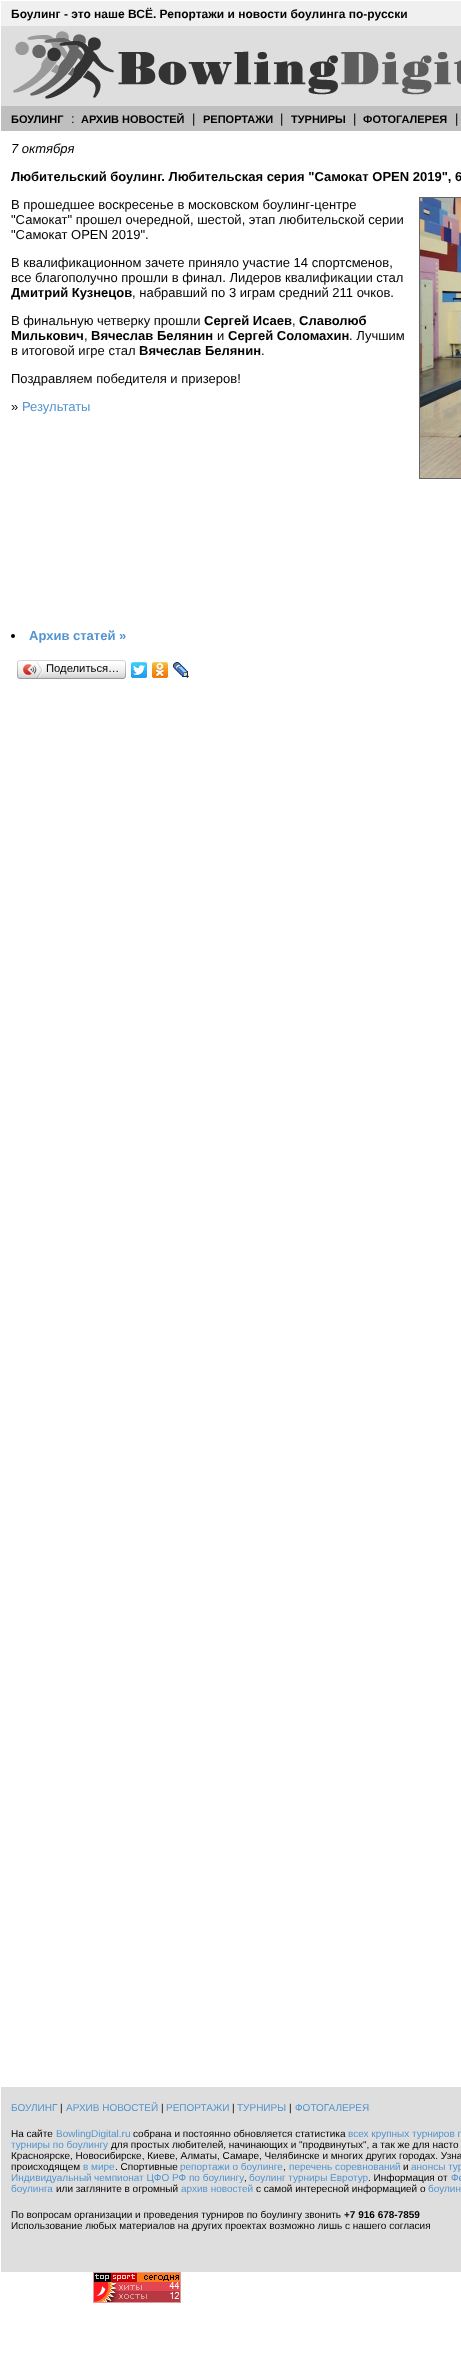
<svg xmlns="http://www.w3.org/2000/svg" width="461" height="2356" viewBox="0 0 461 2356">
  <rect width="100%" height="100%" fill="#ffffff"/>
  <rect x="1" y="1" width="460" height="25" fill="#f0f0f0"/>
  <text x="11" y="18" font-family="Liberation Sans" font-size="12" font-weight="bold" fill="#000000">Боулинг - это наше ВСЁ. Репортажи и новости боулинга по-русски</text>
  <rect x="1" y="26" width="460" height="80" fill="#dedede"/>
  <image x="13" y="31" width="448" height="68" href="img1.png"/>
  <rect x="1" y="106" width="460" height="25" fill="#bfbfbf"/>
  <text x="11" y="123" font-family="Liberation Sans" font-size="11" font-weight="bold" fill="#000000">БОУЛИНГ</text>
  <text x="71" y="123" font-family="Liberation Sans" font-size="13" fill="#000000">:</text>
  <text x="81" y="123" font-family="Liberation Sans" font-size="11" font-weight="bold" fill="#000000">АРХИВ НОВОСТЕЙ</text>
  <text x="192" y="123" font-family="Liberation Sans" font-size="13" fill="#000000">|</text>
  <text x="203" y="123" font-family="Liberation Sans" font-size="11" font-weight="bold" fill="#000000">РЕПОРТАЖИ</text>
  <text x="280" y="123" font-family="Liberation Sans" font-size="13" fill="#000000">|</text>
  <text x="291" y="123" font-family="Liberation Sans" font-size="11" font-weight="bold" fill="#000000">ТУРНИРЫ</text>
  <text x="353" y="123" font-family="Liberation Sans" font-size="13" fill="#000000">|</text>
  <text x="363" y="123" font-family="Liberation Sans" font-size="11" font-weight="bold" fill="#000000">ФОТОГАЛЕРЕЯ</text>
  <text x="455" y="123" font-family="Liberation Sans" font-size="13" fill="#000000">|</text>
  <text x="11" y="153" font-family="Liberation Sans" font-size="13" font-style="italic" fill="#000000">7 октября</text>
  <text x="11" y="181" font-family="Liberation Sans" font-size="13" font-weight="bold" fill="#000000">Любительский боулинг. Любительская серия "Самокат OPEN 2019", 6</text>
  <text x="11" y="209" font-family="Liberation Sans" font-size="13" fill="#000000">В прошедшее воскресенье в московском боулинг-центре</text>
  <text x="11" y="224" font-family="Liberation Sans" font-size="13" fill="#000000">"Самокат" прошел очередной, шестой, этап любительской серии</text>
  <text x="11" y="239" font-family="Liberation Sans" font-size="13" fill="#000000">"Самокат OPEN 2019".</text>
  <rect x="419.5" y="197.5" width="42" height="281" fill="none" stroke="#666666"/>
  <image x="420" y="198" width="41" height="280" href="img2.png"/>
  <text x="11" y="267" font-family="Liberation Sans" font-size="13" fill="#000000">В квалификационном зачете приняло участие 14 спортсменов,</text>
  <text x="11" y="282" font-family="Liberation Sans" font-size="13" fill="#000000">все благополучно прошли в финал. Лидеров квалификации стал</text>
  <text x="11" y="297" font-family="Liberation Sans" font-size="13" font-weight="bold" fill="#000000">Дмитрий Кузнецов</text>
  <text x="132" y="297" font-family="Liberation Sans" font-size="13" fill="#000000">, набравший по 3 играм средний 211 очков.</text>
  <text x="11" y="325" font-family="Liberation Sans" font-size="13" fill="#000000">В финальную четверку прошли</text>
  <text x="204" y="325" font-family="Liberation Sans" font-size="13" font-weight="bold" fill="#000000">Сергей Исаев</text>
  <text x="292" y="325" font-family="Liberation Sans" font-size="13" fill="#000000">,</text>
  <text x="299" y="325" font-family="Liberation Sans" font-size="13" font-weight="bold" fill="#000000">Славолюб</text>
  <text x="11" y="340" font-family="Liberation Sans" font-size="13" font-weight="bold" fill="#000000">Милькович</text>
  <text x="84" y="340" font-family="Liberation Sans" font-size="13" fill="#000000">,</text>
  <text x="91" y="340" font-family="Liberation Sans" font-size="13" font-weight="bold" fill="#000000">Вячеслав Белянин</text>
  <text x="217" y="340" font-family="Liberation Sans" font-size="13" fill="#000000">и</text>
  <text x="228" y="340" font-family="Liberation Sans" font-size="13" font-weight="bold" fill="#000000">Сергей Соломахин</text>
  <text x="349" y="340" font-family="Liberation Sans" font-size="13" fill="#000000">. Лучшим</text>
  <text x="11" y="355" font-family="Liberation Sans" font-size="13" fill="#000000">в итоговой игре стал</text>
  <text x="139" y="355" font-family="Liberation Sans" font-size="13" font-weight="bold" fill="#000000">Вячеслав Белянин</text>
  <text x="261" y="355" font-family="Liberation Sans" font-size="13" fill="#000000">.</text>
  <text x="11" y="383" font-family="Liberation Sans" font-size="13" fill="#000000">Поздравляем победителя и призеров!</text>
  <text x="11" y="411" font-family="Liberation Sans" font-size="13" fill="#000000">»</text>
  <text x="22" y="411" font-family="Liberation Sans" font-size="13" fill="#5294ce">Результаты</text>
  <circle cx="13" cy="636" r="2" fill="#000000"/>
  <text x="29" y="640" font-family="Liberation Sans" font-size="13" font-weight="bold" fill="#5294ce">Архив статей »</text>
  <image x="20" y="660" width="103" height="19" href="img3.png"/>
  <image x="17" y="660" width="3" height="19" href="img4.png"/>
  <image x="23" y="661" width="20" height="17" href="img5.png"/>
  <text x="46" y="672" font-family="Liberation Sans" font-size="11.25" fill="#000000">Поделиться…</text>
  <image x="123" y="660" width="3" height="19" href="img6.png"/>
  <image x="131" y="662" width="16" height="16" href="img7.png"/>
  <image x="152" y="662" width="16" height="16" href="img8.png"/>
  <image x="173" y="662" width="16" height="16" href="img9.png"/>
  <rect x="1" y="2087" width="460" height="185" fill="#dedede"/>
  <text x="11" y="2111" font-family="Liberation Sans" font-size="10" fill="#5294ce">БОУЛИНГ</text>
  <text x="60" y="2111" font-family="Liberation Sans" font-size="10" fill="#000000">|</text>
  <text x="66" y="2111" font-family="Liberation Sans" font-size="10" fill="#5294ce">АРХИВ НОВОСТЕЙ</text>
  <text x="161" y="2111" font-family="Liberation Sans" font-size="10" fill="#000000">|</text>
  <text x="166" y="2111" font-family="Liberation Sans" font-size="10" fill="#5294ce">РЕПОРТАЖИ</text>
  <text x="232" y="2111" font-family="Liberation Sans" font-size="10" fill="#000000">|</text>
  <text x="237" y="2111" font-family="Liberation Sans" font-size="10" fill="#5294ce">ТУРНИРЫ</text>
  <text x="289" y="2111" font-family="Liberation Sans" font-size="10" fill="#000000">|</text>
  <text x="295" y="2111" font-family="Liberation Sans" font-size="10" fill="#5294ce">ФОТОГАЛЕРЕЯ</text>
  <text x="11" y="2137" font-family="Liberation Sans" font-size="10" fill="#000000">На сайте</text>
  <text x="56" y="2137" font-family="Liberation Sans" font-size="10" fill="#5294ce">BowlingDigital.ru</text>
  <text x="133" y="2137" font-family="Liberation Sans" font-size="10" fill="#000000">собрана и постоянно обновляется статистика</text>
  <text x="348" y="2137" font-family="Liberation Sans" font-size="10" fill="#5294ce">всех крупных турниров п</text>
  <text x="11" y="2148" font-family="Liberation Sans" font-size="10" fill="#5294ce">турниры по боулингу</text>
  <text x="111" y="2148" font-family="Liberation Sans" font-size="10" fill="#000000">для простых любителей, начинающих и "продвинутых", а так же для насто</text>
  <text x="11" y="2159" font-family="Liberation Sans" font-size="10" fill="#000000">Красноярске, Новосибирске, Киеве, Алматы, Самаре, Челябинске и многих других городах. Узна</text>
  <text x="11" y="2170" font-family="Liberation Sans" font-size="10" fill="#000000">происходящем</text>
  <text x="83" y="2170" font-family="Liberation Sans" font-size="10" fill="#5294ce">в мире</text>
  <text x="115" y="2170" font-family="Liberation Sans" font-size="10" fill="#000000">. Спортивные</text>
  <text x="180" y="2170" font-family="Liberation Sans" font-size="10" fill="#5294ce">репортажи о боулинге</text>
  <text x="283" y="2170" font-family="Liberation Sans" font-size="10" fill="#000000">,</text>
  <text x="289" y="2170" font-family="Liberation Sans" font-size="10" fill="#5294ce">перечень соревнований</text>
  <text x="403" y="2170" font-family="Liberation Sans" font-size="10" fill="#000000">и</text>
  <text x="411" y="2170" font-family="Liberation Sans" font-size="10" fill="#5294ce">анонсы тур</text>
  <text x="11" y="2181" font-family="Liberation Sans" font-size="10" fill="#5294ce">Индивидуальный</text>
  <text x="94" y="2181" font-family="Liberation Sans" font-size="10" fill="#5294ce">чемпионат ЦФО РФ по боулингу</text>
  <text x="244" y="2181" font-family="Liberation Sans" font-size="10" fill="#000000">,</text>
  <text x="249" y="2181" font-family="Liberation Sans" font-size="10" fill="#5294ce">боулинг турниры Евротур</text>
  <text x="368" y="2181" font-family="Liberation Sans" font-size="10" fill="#000000">. Информация от</text>
  <text x="451" y="2181" font-family="Liberation Sans" font-size="10" fill="#5294ce">Фе</text>
  <text x="11" y="2192" font-family="Liberation Sans" font-size="10" fill="#5294ce">боулинга</text>
  <text x="56" y="2192" font-family="Liberation Sans" font-size="10" fill="#000000">или загляните в огромный</text>
  <text x="181" y="2192" font-family="Liberation Sans" font-size="10" fill="#5294ce">архив новостей</text>
  <text x="256" y="2192" font-family="Liberation Sans" font-size="10" fill="#000000">с самой интересной информацией о</text>
  <text x="428" y="2192" font-family="Liberation Sans" font-size="10" fill="#5294ce">боулин</text>
  <text x="11" y="2218" font-family="Liberation Sans" font-size="10" fill="#000000">По вопросам организации и проведения турниров по боулингу звонить</text>
  <text x="344" y="2218" font-family="Liberation Sans" font-size="10" font-weight="bold" fill="#000000">+7 916 678-7859</text>
  <text x="11" y="2229" font-family="Liberation Sans" font-size="10" fill="#000000">Использование любых материалов на других проектах возможно лишь с нашего согласия</text>
  <image x="93" y="2272" width="88" height="31" href="img10.png"/>
</svg>
